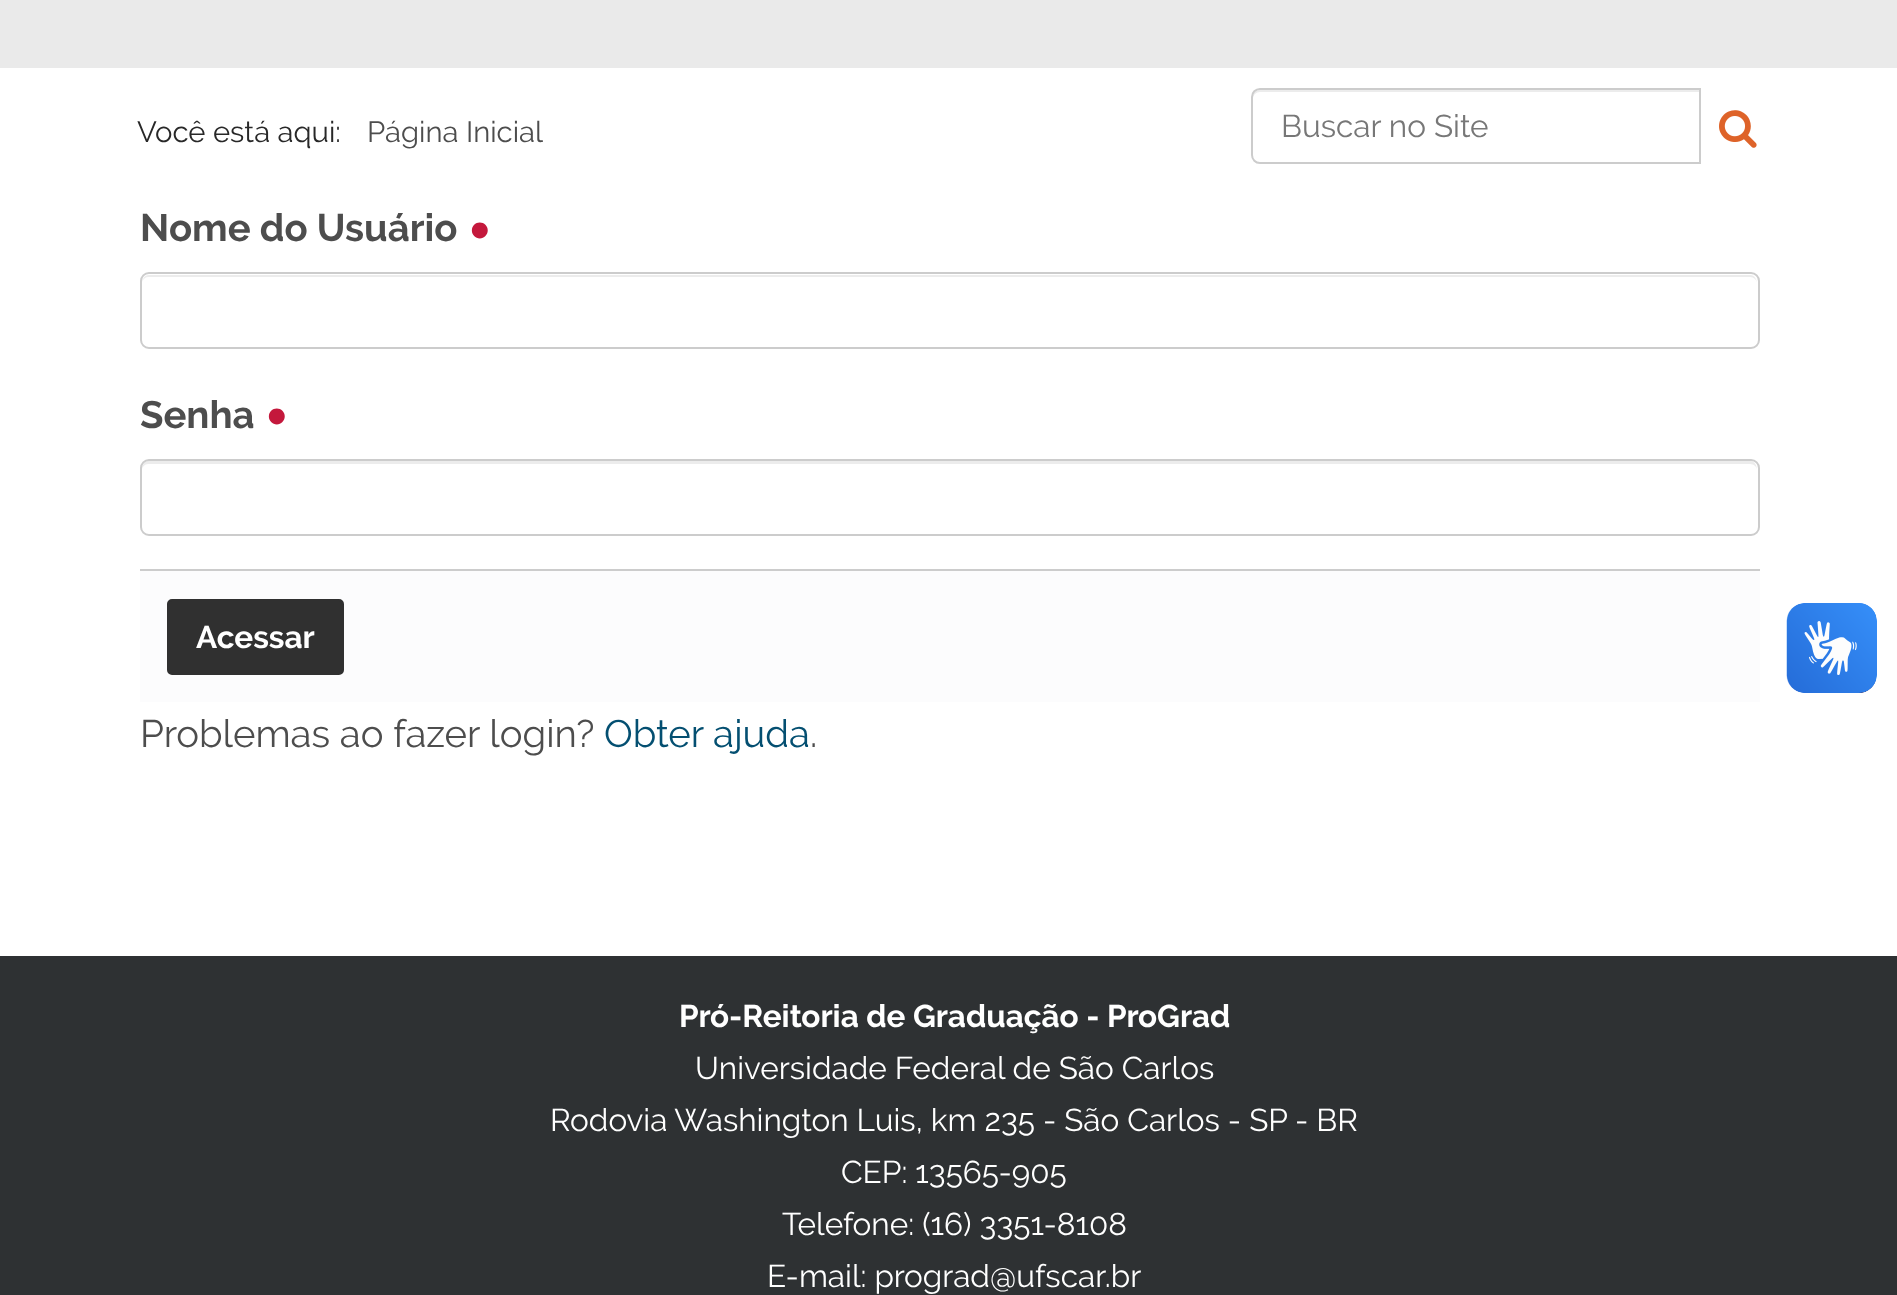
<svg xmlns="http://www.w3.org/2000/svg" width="1897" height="1295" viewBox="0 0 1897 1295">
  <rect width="100%" height="100%" fill="#ffffff"/>
  <text x="137" y="142" font-family="Raleway" font-size="29.25" fill="#282828">Você está aqui:</text>
  <text x="367" y="142" font-family="Raleway" font-size="29.25" fill="#4d4d4d">Página Inicial</text>
  <rect x="0" y="0" width="1897" height="68" fill="#eaeaea"/>
  <path d="M1260 92H1699V90H1260C1256 90 1253 93 1253 97V99C1253 95 1256 92 1260 92Z" fill="#ececec"/>
  <path d="M1260 89H1700V163H1260C1255.5 163 1252 159.5 1252 155V97C1252 92.5 1255.5 89 1260 89Z" fill="none" stroke="#cccccc" stroke-width="2"/>
  <text x="1281" y="137" font-family="Raleway" font-size="31.5" fill="#777777">Buscar no Site</text>
  <image x="1719" y="110" width="38" height="38" href="img1.png"/>
  <text x="140" y="241" font-family="Raleway" font-size="38.25" font-weight="bold" fill="#4d4d4d">Nome do Usuário</text>
  <text x="466" y="257" font-family="Raleway" font-size="76" font-weight="bold" fill="#c4183c">•</text>
  <path d="M148 277H1750C1754 277 1757 280 1757 284C1757 280 1755 275 1750 275H149C144 275 142 280 142 284C142 280 145 277 148 277Z" fill="#ececec"/>
  <rect x="141" y="273" width="1618" height="75" rx="8" fill="none" stroke="#cccccc" stroke-width="2"/>
  <text x="140" y="428" font-family="Raleway" font-size="38.25" font-weight="bold" fill="#4d4d4d">Senha</text>
  <text x="263" y="443" font-family="Raleway" font-size="76" font-weight="bold" fill="#c4183c">•</text>
  <path d="M148 464H1750C1754 464 1757 467 1757 470C1757 466 1755 461 1750 461H149C144 461 142 466 142 470C142 467 145 464 148 464Z" fill="#ececec"/>
  <rect x="141" y="460" width="1618" height="75" rx="8" fill="none" stroke="#cccccc" stroke-width="2"/>
  <rect x="140" y="571" width="1620" height="131" fill="#fcfcfd"/>
  <rect x="140" y="569" width="1620" height="2" fill="#cccccc"/>
  <rect x="168" y="600" width="175" height="74" rx="4" fill="#303030" stroke="#303030" stroke-width="2"/>
  <text x="196" y="648" font-family="Raleway" font-size="31.5" font-weight="bold" fill="#ffffff">Acessar</text>
  <text x="140" y="747" font-family="Raleway" font-size="38.25" fill="#4d4d4d">Problemas ao fazer login?</text>
  <text x="604" y="747" font-family="Raleway" font-size="38.25" fill="#044f71">Obter ajuda</text>
  <text x="810" y="747" font-family="Raleway" font-size="38.25" fill="#4d4d4d">.</text>
  <image x="1786" y="603" width="91" height="90" href="img2.png"/>
  <image x="1787" y="603" width="90" height="90" href="img3.png"/>
  <rect x="0" y="956" width="1897" height="339" fill="#2e3133"/>
  <text x="679" y="1027" font-family="Raleway" font-size="31.5" font-weight="bold" fill="#ffffff">Pró-Reitoria de Graduação - ProGrad</text>
  <text x="695" y="1079" font-family="Raleway" font-size="31.5" fill="#ffffff">Universidade Federal de São Carlos</text>
  <text x="550" y="1131" font-family="Raleway" font-size="31.5" fill="#ffffff">Rodovia Washington Luis, km 235 - São Carlos - SP - BR</text>
  <text x="841" y="1183" font-family="Raleway" font-size="31.5" fill="#ffffff">CEP: 13565-905</text>
  <text x="782" y="1235" font-family="Raleway" font-size="31.5" fill="#ffffff">Telefone: (16) 3351-8108</text>
  <text x="767" y="1287" font-family="Raleway" font-size="31.5" fill="#ffffff">E-mail: prograd@ufscar.br</text>
</svg>
